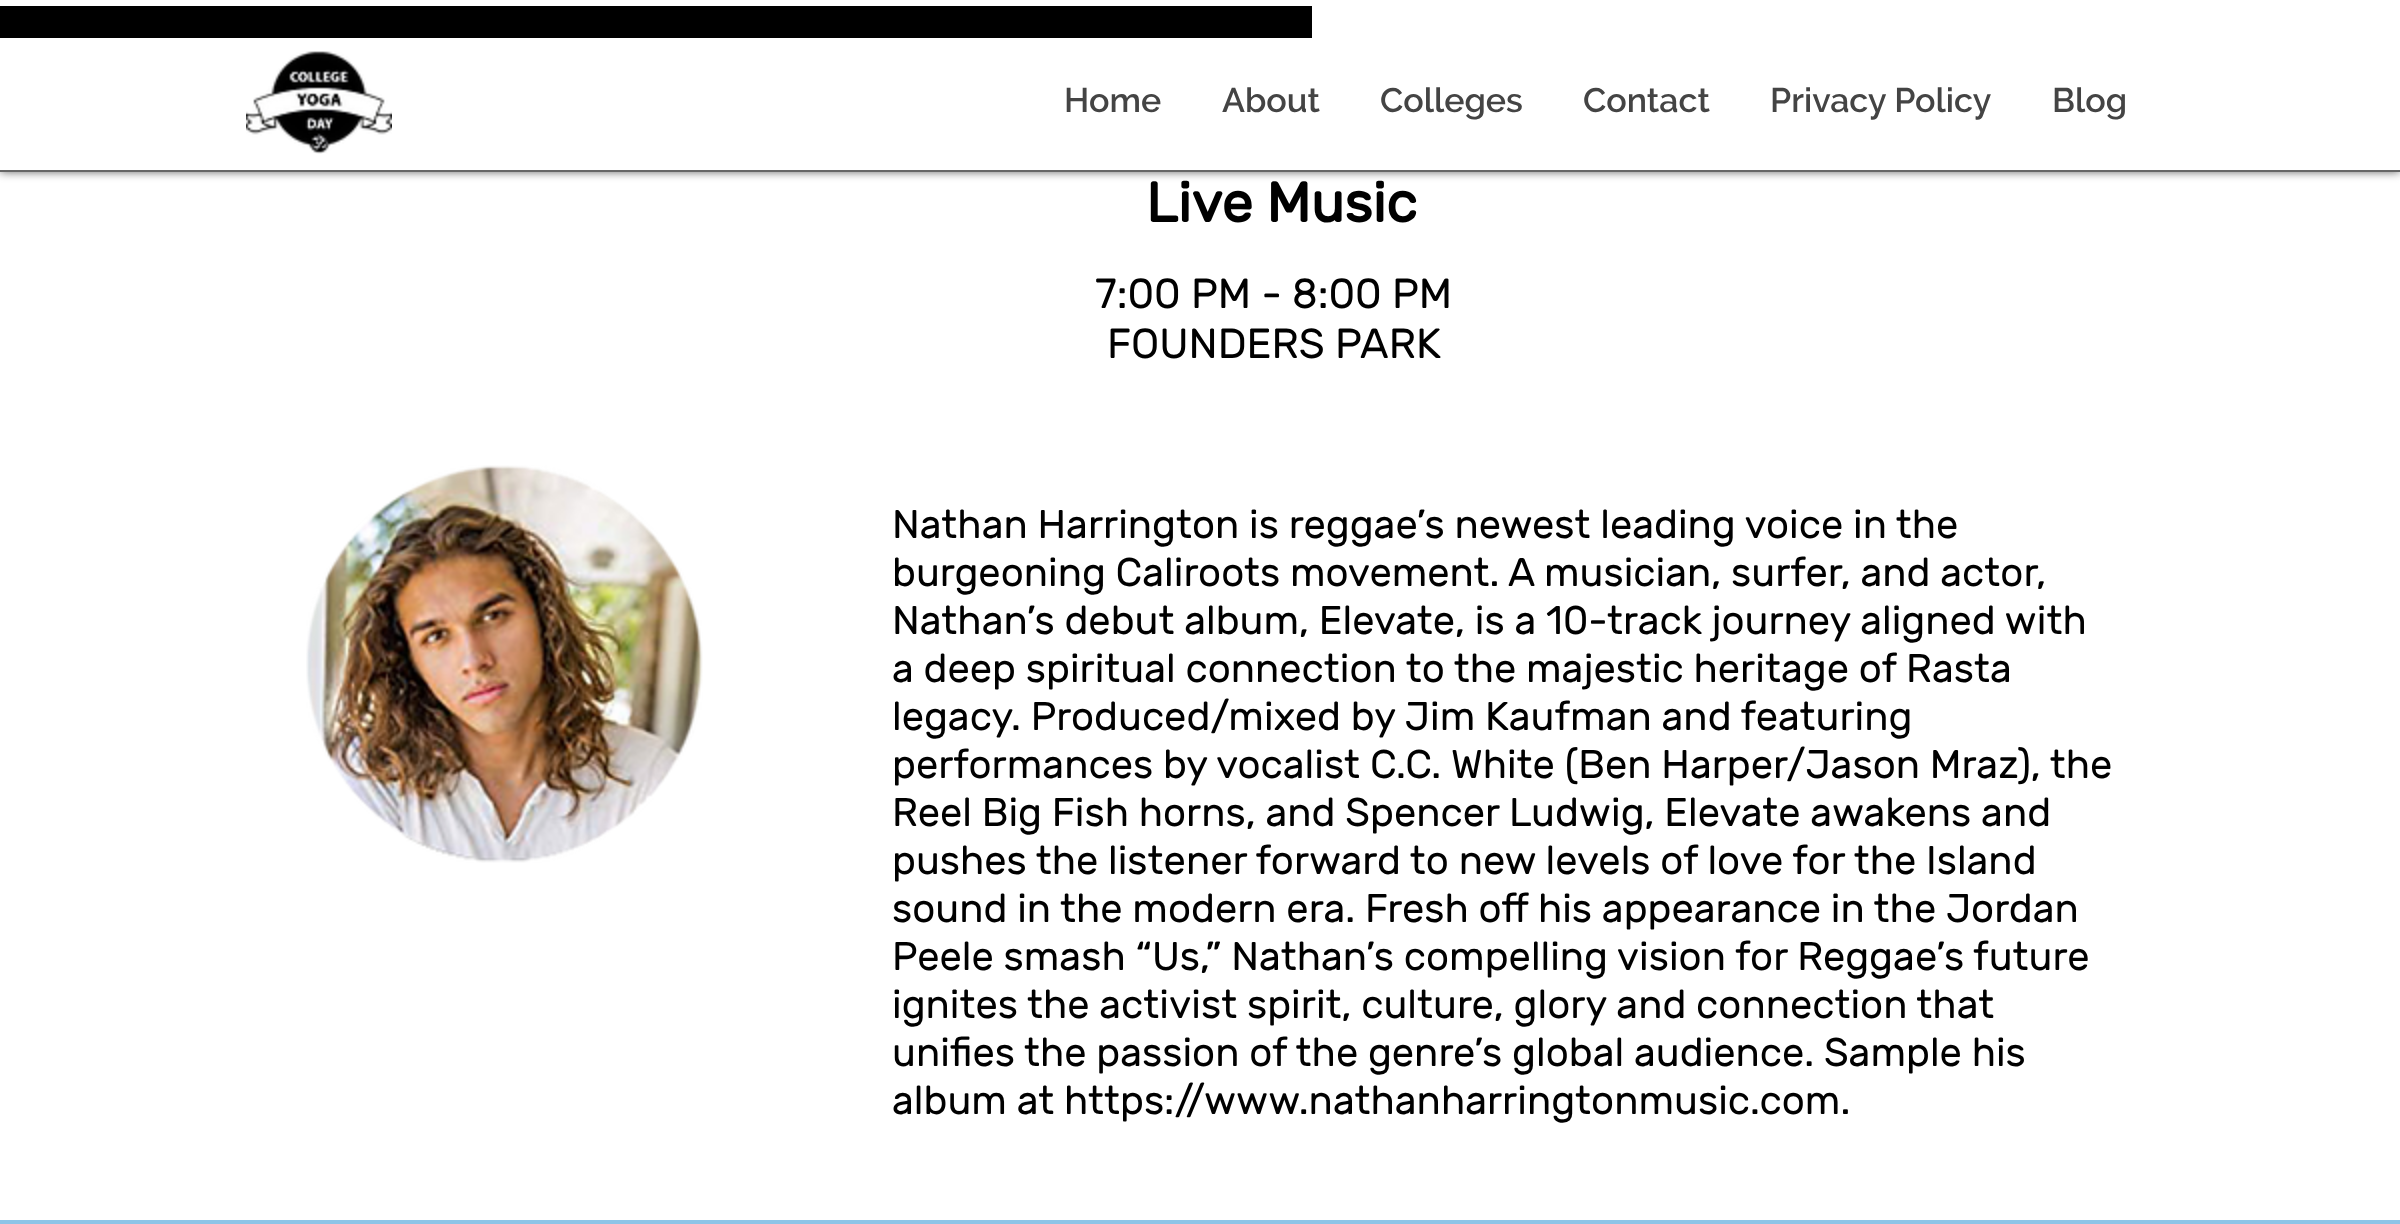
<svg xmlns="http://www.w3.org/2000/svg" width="2400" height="1224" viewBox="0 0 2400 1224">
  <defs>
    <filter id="blur1" x="-50%" y="-200%" width="200%" height="500%"><feGaussianBlur stdDeviation="5"/></filter>
  </defs>
  <rect width="100%" height="100%" fill="#ffffff"/>
  <rect x="0" y="0" width="2400" height="172" fill="#000000" fill-opacity="0.6" filter="url(#blur1)"/>
  <rect x="0" y="0" width="2400" height="170" fill="#ffffff"/>
  <rect x="0" y="170" width="2400" height="2" fill="#666666"/>
  <rect x="0" y="6" width="1312" height="32" fill="#000000"/>
  <image x="246" y="51" width="146" height="103" href="img1.png"/>
  <text x="1064" y="112" font-family="Raleway" font-size="34" font-weight="600" fill="#444444">Home</text>
  <text x="1222" y="112" font-family="Raleway" font-size="34" font-weight="600" fill="#444444">About</text>
  <text x="1380" y="112" font-family="Raleway" font-size="34" font-weight="600" fill="#444444">Colleges</text>
  <text x="1583" y="112" font-family="Raleway" font-size="34" font-weight="600" fill="#444444">Contact</text>
  <text x="1770" y="112" font-family="Raleway" font-size="34" font-weight="600" fill="#444444">Privacy Policy</text>
  <text x="2052" y="112" font-family="Raleway" font-size="34" font-weight="600" fill="#444444">Blog</text>
  <text x="1146" y="222" font-family="Rubik" font-size="56" font-weight="bold" fill="#000000">Live Music</text>
  <text x="1095" y="308" font-family="Rubik" font-size="42" fill="#000000">7:00 PM - 8:00 PM</text>
  <text x="1107" y="358" font-family="Rubik" font-size="42" fill="#000000">FOUNDERS PARK</text>
  <image x="306" y="465" width="397" height="398" href="img2.png"/>
  <text x="892" y="538" font-family="Rubik" font-size="40" fill="#000000">Nathan Harrington is reggae’s newest leading voice in the</text>
  <text x="892" y="586" font-family="Rubik" font-size="40" fill="#000000">burgeoning Caliroots movement. A musician, surfer, and actor,</text>
  <text x="892" y="634" font-family="Rubik" font-size="40" fill="#000000">Nathan’s debut album, Elevate, is a 10-track journey aligned with</text>
  <text x="892" y="682" font-family="Rubik" font-size="40" fill="#000000">a deep spiritual connection to the majestic heritage of Rasta</text>
  <text x="892" y="730" font-family="Rubik" font-size="40" fill="#000000">legacy. Produced/mixed by Jim Kaufman and featuring</text>
  <text x="892" y="778" font-family="Rubik" font-size="40" fill="#000000">performances by vocalist C.C. White (Ben Harper/Jason Mraz), the</text>
  <text x="892" y="826" font-family="Rubik" font-size="40" fill="#000000">Reel Big Fish horns, and Spencer Ludwig, Elevate awakens and</text>
  <text x="892" y="874" font-family="Rubik" font-size="40" fill="#000000">pushes the listener forward to new levels of love for the Island</text>
  <text x="892" y="922" font-family="Rubik" font-size="40" fill="#000000">sound in the modern era. Fresh off his appearance in the Jordan</text>
  <text x="892" y="970" font-family="Rubik" font-size="40" fill="#000000">Peele smash “Us,” Nathan’s compelling vision for Reggae’s future</text>
  <text x="892" y="1018" font-family="Rubik" font-size="40" fill="#000000">ignites the activist spirit, culture, glory and connection that</text>
  <text x="892" y="1066" font-family="Rubik" font-size="40" fill="#000000">unifies the passion of the genre’s global audience. Sample his</text>
  <text x="892" y="1114" font-family="Rubik" font-size="40" fill="#000000">album at https://www.nathanharringtonmusic.com.</text>
  <rect x="0" y="1220" width="2400" height="4" fill="#8ec4e7"/>
</svg>
